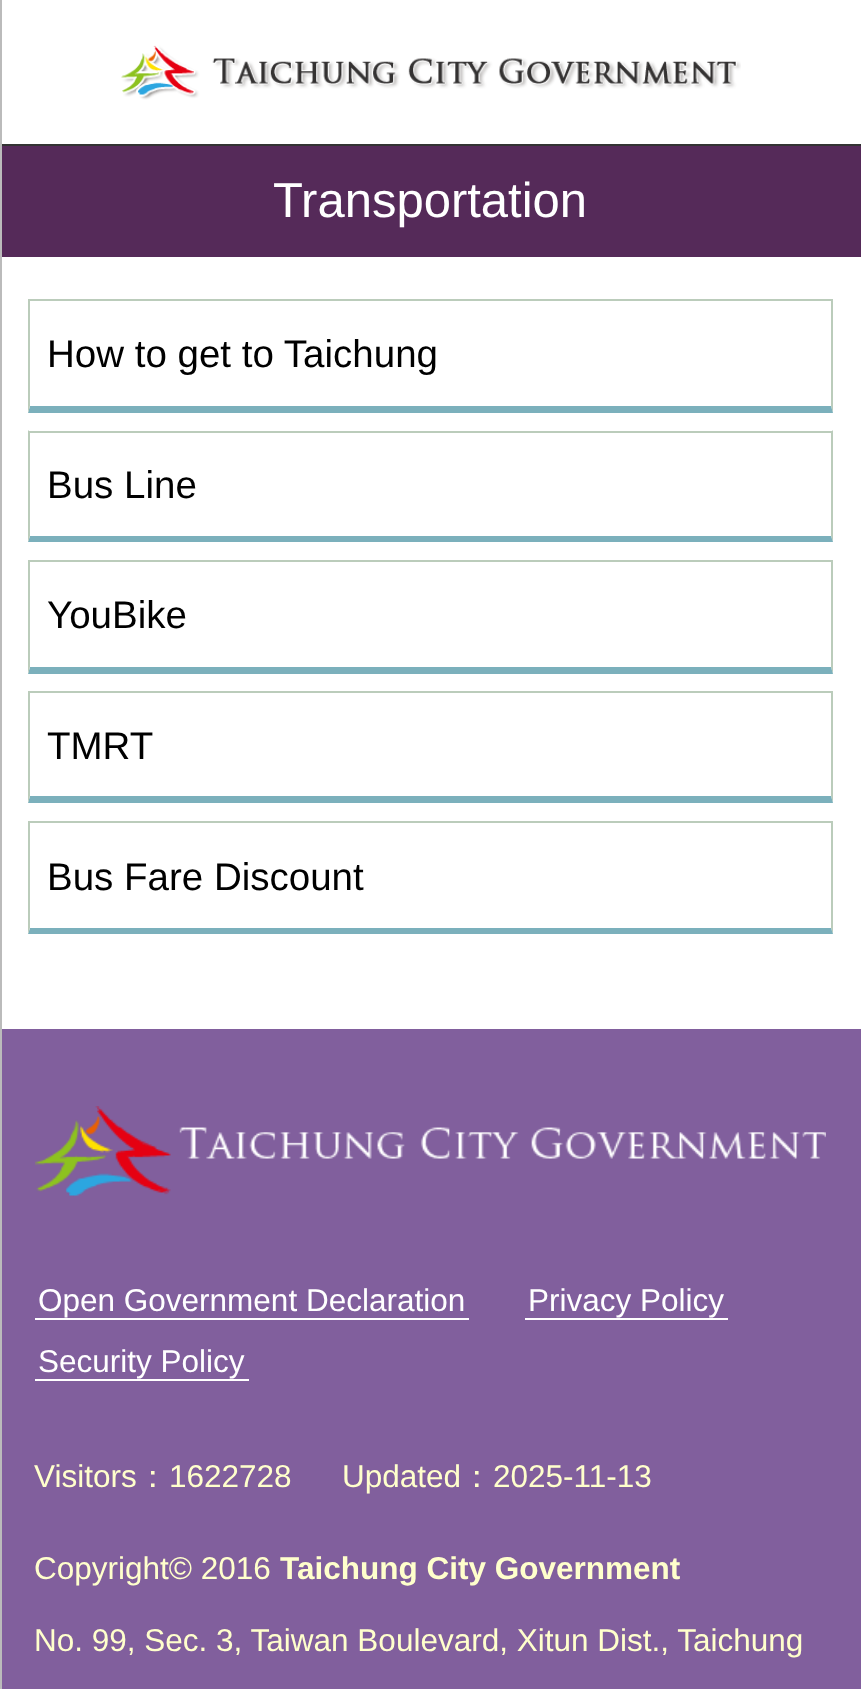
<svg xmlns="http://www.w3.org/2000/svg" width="861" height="1689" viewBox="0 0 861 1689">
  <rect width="100%" height="100%" fill="#ffffff"/>
  <rect x="0" y="144" width="861" height="2" fill="#333333"/>
  <rect x="0" y="0" width="2" height="1689" fill="#bbbbbb"/>
  <image x="121" y="45" width="620" height="55" href="img1.png"/>
  <rect x="2" y="146" width="859" height="111" fill="#552a59"/>
  <text x="273" y="217" font-family="Liberation Sans" font-size="49" fill="#ffffff">Transportation</text>
  <rect x="28" y="299" width="805" height="2" fill="#bbccbb"/>
  <path d="M833 299V413L831 406V301Z" fill="#bbccbb"/>
  <path d="M833 413H28L30 406H831Z" fill="#7bb0bc"/>
  <path d="M28 413V299L30 301V406Z" fill="#bbccbb"/>
  <text x="47" y="367" font-family="Liberation Sans" font-size="38.5" fill="#000000">How to get to Taichung</text>
  <rect x="28" y="431" width="805" height="2" fill="#bbccbb"/>
  <path d="M833 430V542L831 536V432Z" fill="#bbccbb"/>
  <path d="M833 542H28L30 536H831Z" fill="#7bb0bc"/>
  <path d="M28 542V430L30 432V536Z" fill="#bbccbb"/>
  <text x="47" y="498" font-family="Liberation Sans" font-size="38.5" fill="#000000">Bus Line</text>
  <rect x="28" y="560" width="805" height="2" fill="#bbccbb"/>
  <path d="M833 560V674L831 667V562Z" fill="#bbccbb"/>
  <path d="M833 674H28L30 667H831Z" fill="#7bb0bc"/>
  <path d="M28 674V560L30 562V667Z" fill="#bbccbb"/>
  <text x="47" y="628" font-family="Liberation Sans" font-size="38.5" fill="#000000">YouBike</text>
  <rect x="28" y="691" width="805" height="2" fill="#bbccbb"/>
  <path d="M833 691V803L831 796V693Z" fill="#bbccbb"/>
  <path d="M833 803H28L30 796H831Z" fill="#7bb0bc"/>
  <path d="M28 803V691L30 693V796Z" fill="#bbccbb"/>
  <text x="47" y="759" font-family="Liberation Sans" font-size="38.5" fill="#000000">TMRT</text>
  <rect x="28" y="821" width="805" height="2" fill="#bbccbb"/>
  <path d="M833 821V934L831 928V822Z" fill="#bbccbb"/>
  <path d="M833 934H28L30 928H831Z" fill="#7bb0bc"/>
  <path d="M28 934V821L30 822V928Z" fill="#bbccbb"/>
  <text x="47" y="890" font-family="Liberation Sans" font-size="38.5" fill="#000000">Bus Fare Discount</text>
  <rect x="2" y="1029" width="859" height="660" fill="#815f9d"/>
  <image x="35" y="1106" width="791" height="91" href="img2.png"/>
  <text x="38" y="1311" font-family="Liberation Sans" font-size="31.5" fill="#ffffff">Open Government Declaration</text>
  <rect x="35" y="1318" width="434" height="2" fill="#ffffff"/>
  <text x="528" y="1311" font-family="Liberation Sans" font-size="31.5" fill="#ffffff">Privacy Policy</text>
  <rect x="525" y="1318" width="203" height="2" fill="#ffffff"/>
  <text x="38" y="1372" font-family="Liberation Sans" font-size="31.5" fill="#ffffff">Security Policy</text>
  <rect x="35" y="1379" width="214" height="2" fill="#ffffff"/>
  <text x="34" y="1487" font-family="Liberation Sans" font-size="31.5" fill="#ffffcc">Visitors</text>
  <text x="137" y="1487" font-family="WenQuanYi Zen Hei" font-size="31.5" font-weight="500" fill="#ffffcc">：</text>
  <text x="169" y="1487" font-family="Liberation Sans" font-size="31.5" fill="#ffffcc">1622728</text>
  <text x="342" y="1487" font-family="Liberation Sans" font-size="31.5" fill="#ffffcc">Updated</text>
  <text x="461" y="1487" font-family="WenQuanYi Zen Hei" font-size="31.5" font-weight="500" fill="#ffffcc">：</text>
  <text x="493" y="1487" font-family="Liberation Sans" font-size="31.5" fill="#ffffcc">2025-11-13</text>
  <text x="34" y="1579" font-family="Liberation Sans" font-size="31.5" fill="#ffffcc">Copyright© 2016</text>
  <text x="280" y="1579" font-family="Liberation Sans" font-size="31.5" font-weight="bold" fill="#ffffcc">Taichung City Government</text>
  <text x="34" y="1651" font-family="Liberation Sans" font-size="31.5" fill="#ffffcc">No. 99, Sec. 3, Taiwan Boulevard, Xitun Dist., Taichung</text>
</svg>
